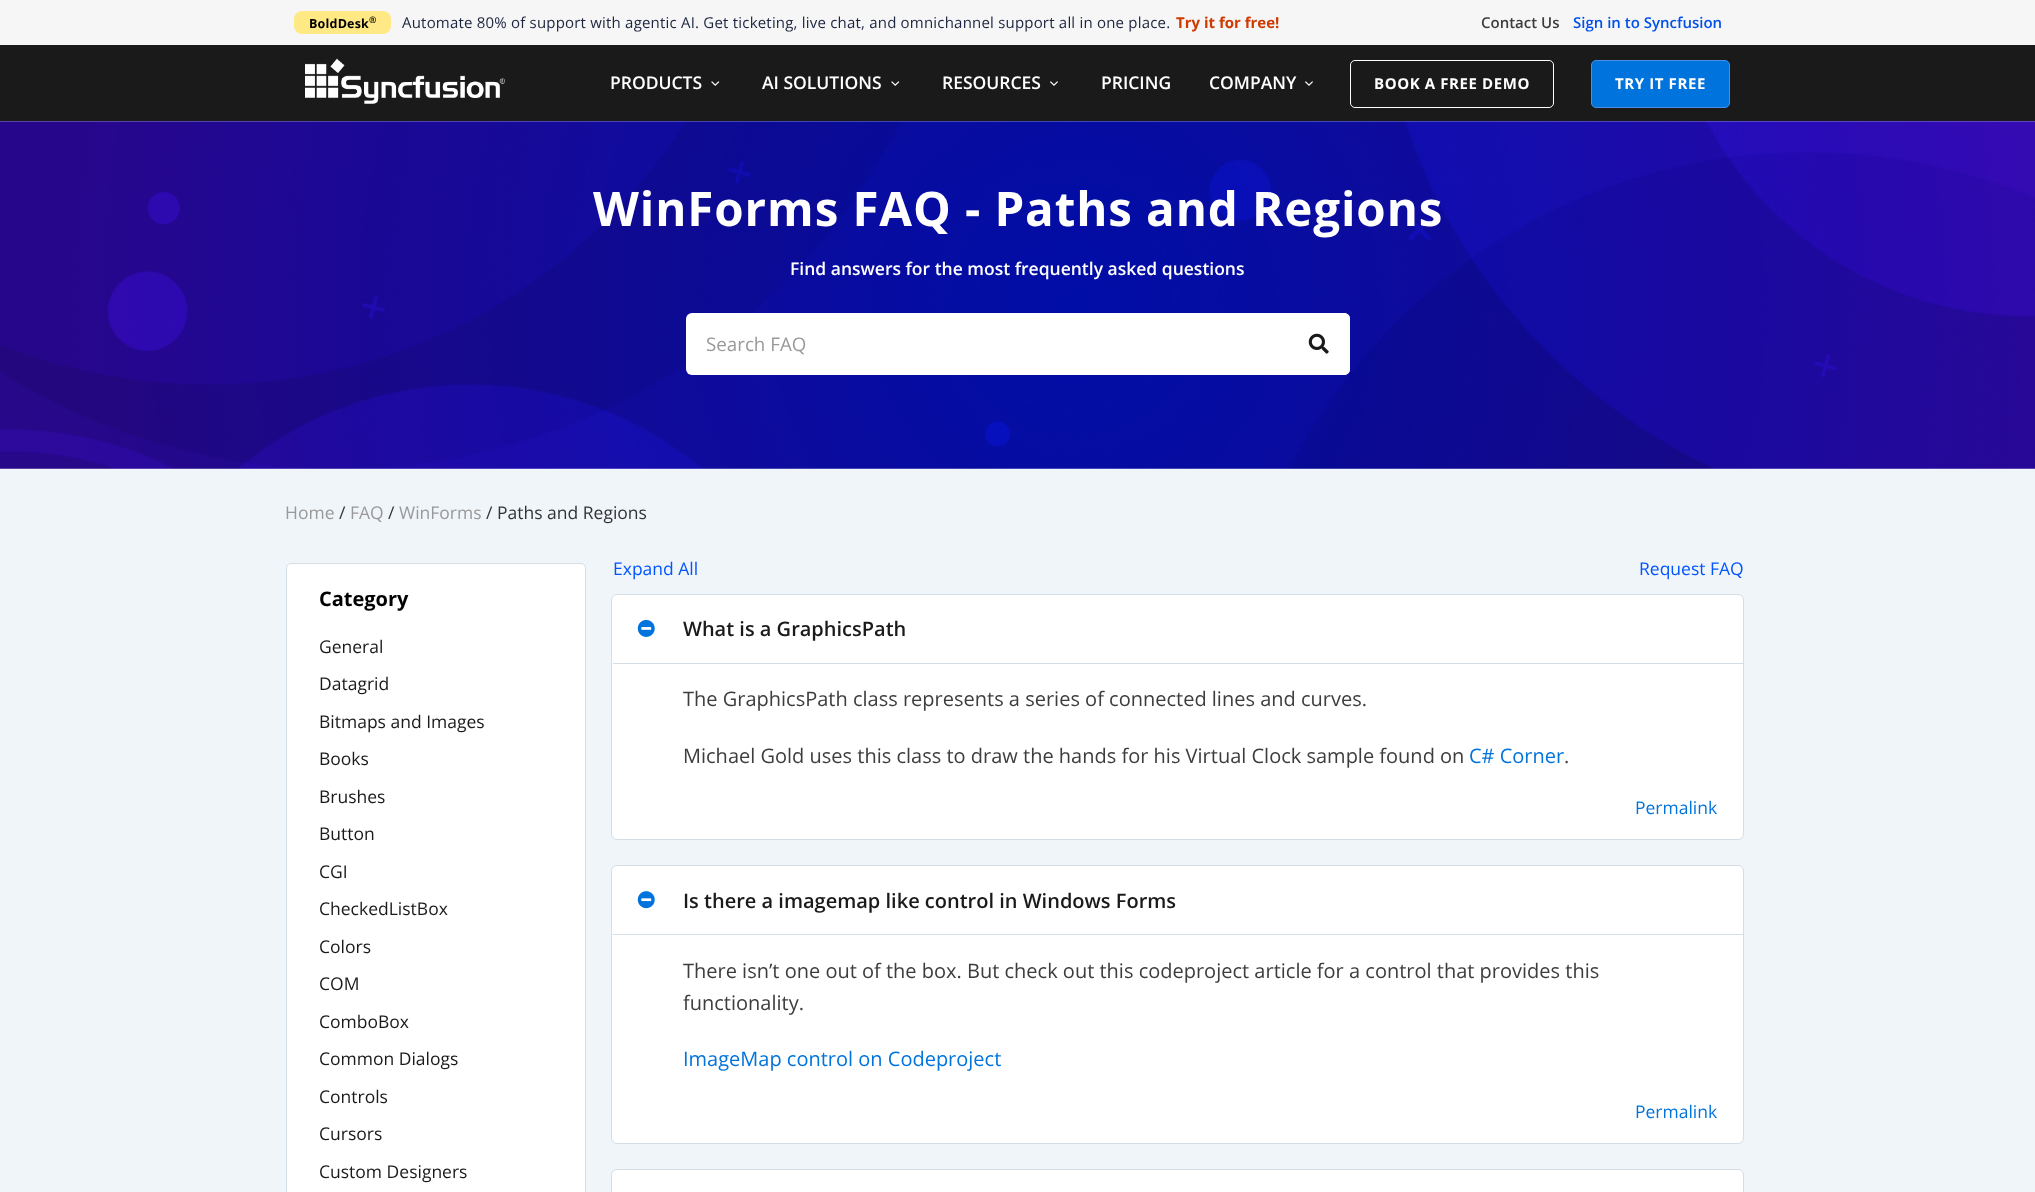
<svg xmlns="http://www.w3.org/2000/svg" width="2035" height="1192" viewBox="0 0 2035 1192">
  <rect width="100%" height="100%" fill="#f0f5fa"/>
  <rect x="0" y="0" width="2035" height="45" fill="#f6f6f6"/>
  <rect x="294" y="11" width="97" height="23" rx="8" fill="#ffe985"/>
  <text x="309" y="28" font-family="Open Sans" font-size="12.5" font-weight="bold" letter-spacing="0.2" fill="#000000">BoldDesk</text>
  <text x="369" y="23" font-family="Open Sans" font-size="9" font-weight="bold" letter-spacing="0.2" fill="#000000">®</text>
  <text x="402" y="28" font-family="Open Sans" font-size="15" letter-spacing="0.2" fill="#1c243f">Automate 80% of support with agentic AI. Get ticketing, live chat, and omnichannel support all in one place.</text>
  <text x="1176" y="28" font-family="Open Sans" font-size="15" font-weight="bold" fill="#ce3a00">Try it for free!</text>
  <text x="1481" y="28" font-family="Open Sans" font-size="15" font-weight="600" fill="#3d3d3d">Contact Us</text>
  <text x="1573" y="28" font-family="Open Sans" font-size="15" font-weight="600" fill="#0050eb">Sign in to Syncfusion</text>
  <rect x="0" y="45" width="2035" height="76" fill="#1a1a1a"/>
  <image x="305" y="58" width="200" height="46" href="img1.png"/>
  <text x="610" y="89" font-family="Open Sans" font-size="17.5" font-weight="600" fill="#ffffff">PRODUCTS</text>
  <image x="711" y="81" width="9" height="5" href="img2.png"/>
  <text x="762" y="89" font-family="Open Sans" font-size="17.5" font-weight="600" fill="#ffffff">AI SOLUTIONS</text>
  <image x="891" y="81" width="9" height="5" href="img2.png"/>
  <text x="942" y="89" font-family="Open Sans" font-size="17.5" font-weight="600" fill="#ffffff">RESOURCES</text>
  <image x="1050" y="81" width="8" height="5" href="img3.png"/>
  <text x="1101" y="89" font-family="Open Sans" font-size="17.5" font-weight="600" fill="#ffffff">PRICING</text>
  <text x="1209" y="89" font-family="Open Sans" font-size="17.5" font-weight="600" fill="#ffffff">COMPANY</text>
  <image x="1305" y="81" width="8" height="5" href="img3.png"/>
  <rect x="1350.5" y="60.5" width="203" height="47" rx="4.5" fill="none" stroke="#ffffff"/>
  <text x="1374" y="89" font-family="Open Sans" font-size="15" font-weight="bold" letter-spacing="0.6" fill="#ffffff">BOOK A FREE DEMO</text>
  <rect x="1591.5" y="60.5" width="138" height="47" rx="4.5" fill="#0073dc" stroke="#4a90e2"/>
  <text x="1615" y="89" font-family="Open Sans" font-size="15" font-weight="bold" letter-spacing="0.6" fill="#ffffff">TRY IT FREE</text>
  <image x="0" y="121" width="2035" height="348" href="img4.png"/>
  <text x="593" y="226" font-family="Open Sans" font-size="47.5" font-weight="bold" letter-spacing="0.9" fill="#ffffff">WinForms FAQ - Paths and Regions</text>
  <text x="790" y="275" font-family="Open Sans" font-size="17.5" font-weight="600" fill="#ffffff">Find answers for the most frequently asked questions</text>
  <rect x="686" y="313" width="664" height="62" rx="6" fill="#ffffff"/>
  <text x="706" y="351" font-family="Open Sans" font-size="18.75" fill="#999999">Search FAQ</text>
  <path d="M1288 313H1344C1347.5 313 1350 315.5 1350 319V369C1350 372.5 1347.5 375 1344 375H1288Z" fill="#ffffff"/>
  <image x="1308" y="333" width="21" height="21" href="img5.png"/>
  <text x="285" y="519" font-family="Open Sans" font-size="17.5" fill="#999999">Home</text>
  <text x="339" y="519" font-family="Open Sans" font-size="17.5" fill="#333333">/</text>
  <text x="350" y="519" font-family="Open Sans" font-size="17.5" fill="#999999">FAQ</text>
  <text x="388" y="519" font-family="Open Sans" font-size="17.5" fill="#333333">/</text>
  <text x="399" y="519" font-family="Open Sans" font-size="17.5" fill="#999999">WinForms</text>
  <text x="486" y="519" font-family="Open Sans" font-size="17.5" fill="#333333">/ Paths and Regions</text>
  <rect x="286.5" y="563.5" width="299" height="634" rx="4.5" fill="#ffffff" stroke="#d4dee7"/>
  <text x="319" y="606" font-family="Open Sans" font-size="20" font-weight="bold" fill="#000000">Category</text>
  <text x="319" y="653" font-family="Open Sans" font-size="17.5" fill="#1a1a1a">General</text>
  <text x="319" y="690" font-family="Open Sans" font-size="17.5" fill="#1a1a1a">Datagrid</text>
  <text x="319" y="728" font-family="Open Sans" font-size="17.5" fill="#1a1a1a">Bitmaps and Images</text>
  <text x="319" y="765" font-family="Open Sans" font-size="17.5" fill="#1a1a1a">Books</text>
  <text x="319" y="803" font-family="Open Sans" font-size="17.5" fill="#1a1a1a">Brushes</text>
  <text x="319" y="840" font-family="Open Sans" font-size="17.5" fill="#1a1a1a">Button</text>
  <text x="319" y="878" font-family="Open Sans" font-size="17.5" fill="#1a1a1a">CGI</text>
  <text x="319" y="915" font-family="Open Sans" font-size="17.5" fill="#1a1a1a">CheckedListBox</text>
  <text x="319" y="953" font-family="Open Sans" font-size="17.5" fill="#1a1a1a">Colors</text>
  <text x="319" y="990" font-family="Open Sans" font-size="17.5" fill="#1a1a1a">COM</text>
  <text x="319" y="1028" font-family="Open Sans" font-size="17.5" fill="#1a1a1a">ComboBox</text>
  <text x="319" y="1065" font-family="Open Sans" font-size="17.5" fill="#1a1a1a">Common Dialogs</text>
  <text x="319" y="1103" font-family="Open Sans" font-size="17.5" fill="#1a1a1a">Controls</text>
  <text x="319" y="1140" font-family="Open Sans" font-size="17.5" fill="#1a1a1a">Cursors</text>
  <text x="319" y="1178" font-family="Open Sans" font-size="17.5" fill="#1a1a1a">Custom Designers</text>
  <text x="613" y="575" font-family="Open Sans" font-size="17.5" fill="#0254ff">Expand All</text>
  <text x="1639" y="575" font-family="Open Sans" font-size="17.5" fill="#0254ff">Request FAQ</text>
  <rect x="611.5" y="594.5" width="1132" height="245" rx="5.5" fill="#ffffff" stroke="#d4dee7"/>
  <image x="637" y="620" width="18" height="17" href="img6.png"/>
  <text x="683" y="636" font-family="Open Sans" font-size="20" font-weight="600" fill="#1a1a1a">What is a GraphicsPath</text>
  <rect x="613" y="663" width="1130" height="1" fill="#d4dee7"/>
  <text x="683" y="706" font-family="Open Sans" font-size="20" fill="#3d3d3d">The GraphicsPath class represents a series of connected lines and curves.</text>
  <text x="683" y="763" font-family="Open Sans" font-size="20" fill="#3d3d3d">Michael Gold uses this class to draw the hands for his Virtual Clock sample found on</text>
  <text x="1469" y="763" font-family="Open Sans" font-size="20" fill="#0073dc">C# Corner</text>
  <text x="1564" y="763" font-family="Open Sans" font-size="20" fill="#3d3d3d">.</text>
  <text x="1635" y="814" font-family="Open Sans" font-size="17.5" fill="#0073dc">Permalink</text>
  <rect x="611.5" y="865.5" width="1132" height="278" rx="5.5" fill="#ffffff" stroke="#d4dee7"/>
  <image x="637" y="891" width="18" height="18" href="img7.png"/>
  <text x="683" y="908" font-family="Open Sans" font-size="20" font-weight="600" fill="#1a1a1a">Is there a imagemap like control in Windows Forms</text>
  <rect x="613" y="934" width="1130" height="1" fill="#d4dee7"/>
  <text x="683" y="978" font-family="Open Sans" font-size="20" fill="#3d3d3d">There isn’t one out of the box. But check out this codeproject article for a control that provides this</text>
  <text x="683" y="1010" font-family="Open Sans" font-size="20" fill="#3d3d3d">functionality.</text>
  <text x="683" y="1066" font-family="Open Sans" font-size="20" fill="#0073dc">ImageMap control on Codeproject</text>
  <text x="1635" y="1118" font-family="Open Sans" font-size="17.5" fill="#0073dc">Permalink</text>
  <rect x="611.5" y="1169.5" width="1132" height="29" rx="5.5" fill="#ffffff" stroke="#d4dee7"/>
</svg>
